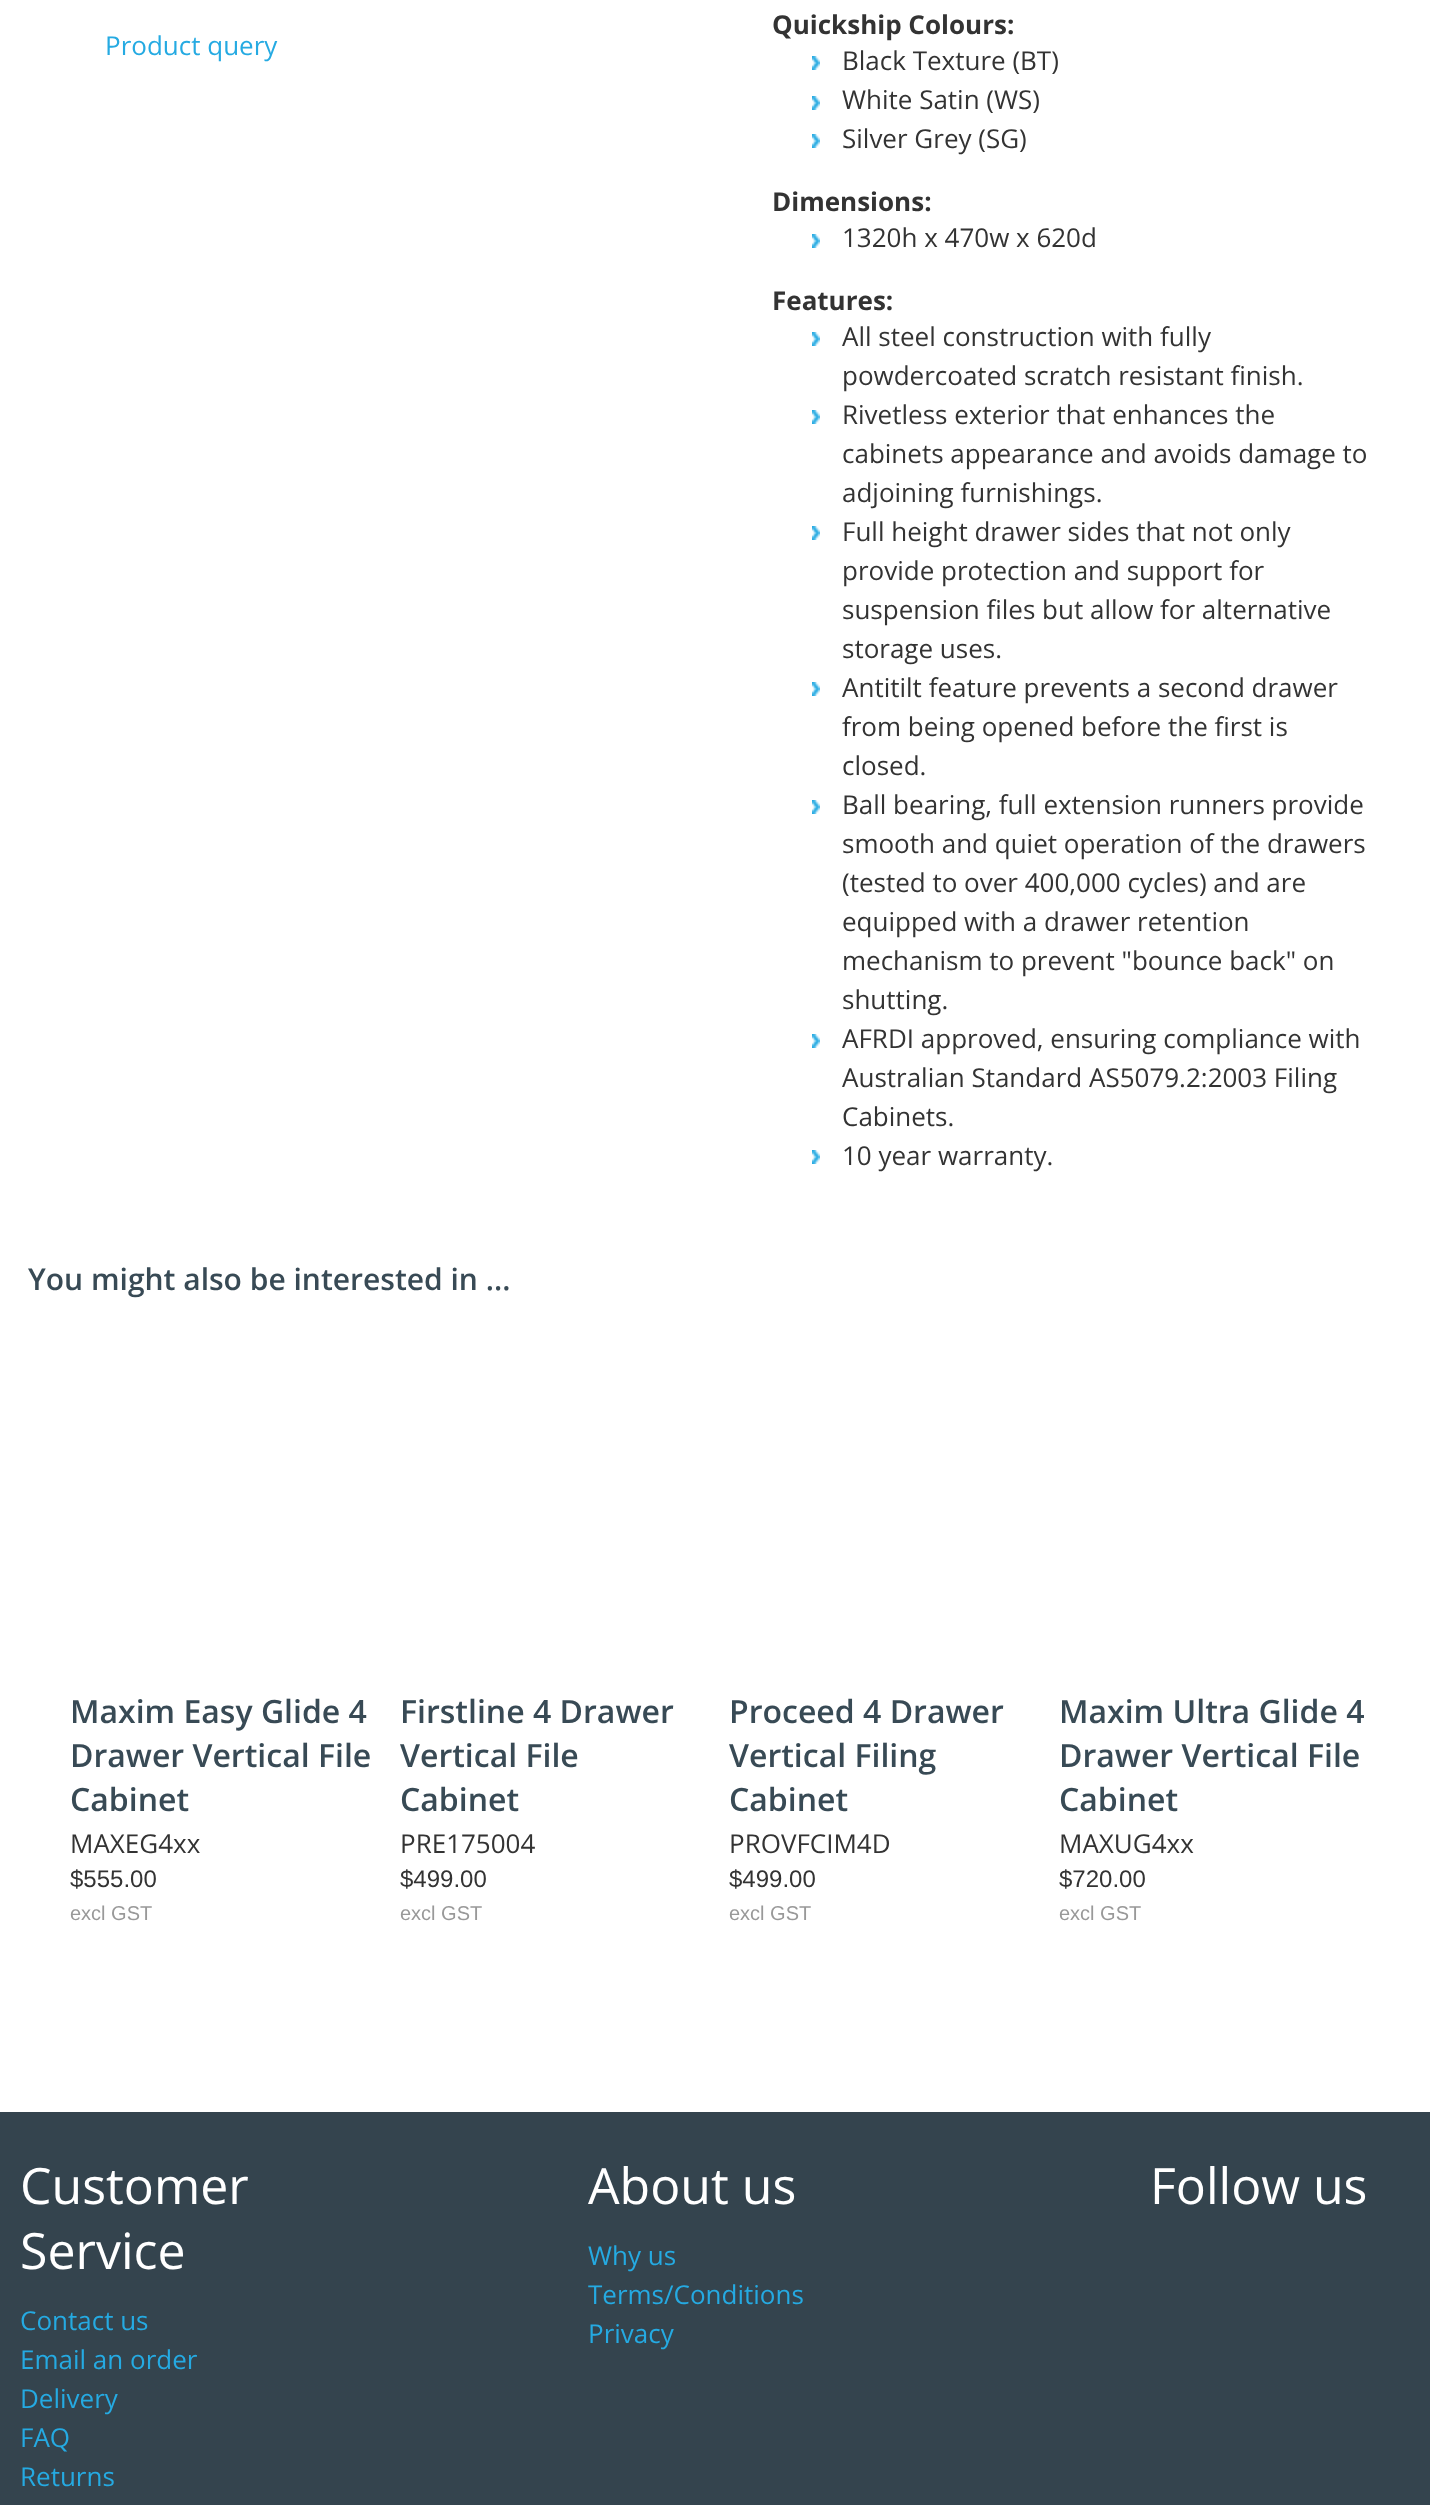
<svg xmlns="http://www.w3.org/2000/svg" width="1430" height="2505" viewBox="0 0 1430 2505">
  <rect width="100%" height="100%" fill="#ffffff"/>
  <text x="105" y="55" font-family="Open Sans" font-size="26" fill="#25aae2">Product query</text>
  <text x="772" y="34" font-family="Open Sans" font-size="26" font-weight="bold" fill="#333333">Quickship Colours:</text>
  <image x="812" y="56" width="8" height="14" href="img1.png"/>
  <text x="842" y="70" font-family="Open Sans" font-size="26" fill="#333333">Black Texture (BT)</text>
  <image x="812" y="96" width="8" height="14" href="img1.png"/>
  <text x="842" y="109" font-family="Open Sans" font-size="26" fill="#333333">White Satin (WS)</text>
  <image x="812" y="134" width="8" height="14" href="img1.png"/>
  <text x="842" y="148" font-family="Open Sans" font-size="26" fill="#333333">Silver Grey (SG)</text>
  <text x="772" y="211" font-family="Open Sans" font-size="26" font-weight="bold" fill="#333333">Dimensions:</text>
  <image x="812" y="234" width="8" height="14" href="img1.png"/>
  <text x="842" y="247" font-family="Open Sans" font-size="26" fill="#333333">1320h x 470w x 620d</text>
  <text x="772" y="310" font-family="Open Sans" font-size="26" font-weight="bold" fill="#333333">Features:</text>
  <image x="812" y="332" width="8" height="14" href="img1.png"/>
  <text x="842" y="346" font-family="Open Sans" font-size="26" fill="#333333">All steel construction with fully</text>
  <text x="842" y="385" font-family="Open Sans" font-size="26" fill="#333333">powdercoated scratch resistant finish.</text>
  <image x="812" y="410" width="8" height="14" href="img1.png"/>
  <text x="842" y="424" font-family="Open Sans" font-size="26" fill="#333333">Rivetless exterior that enhances the</text>
  <text x="842" y="463" font-family="Open Sans" font-size="26" fill="#333333">cabinets appearance and avoids damage to</text>
  <text x="842" y="502" font-family="Open Sans" font-size="26" fill="#333333">adjoining furnishings.</text>
  <image x="812" y="526" width="8" height="14" href="img1.png"/>
  <text x="842" y="541" font-family="Open Sans" font-size="26" fill="#333333">Full height drawer sides that not only</text>
  <text x="842" y="580" font-family="Open Sans" font-size="26" fill="#333333">provide protection and support for</text>
  <text x="842" y="619" font-family="Open Sans" font-size="26" fill="#333333">suspension files but allow for alternative</text>
  <text x="842" y="658" font-family="Open Sans" font-size="26" fill="#333333">storage uses.</text>
  <image x="812" y="682" width="8" height="14" href="img1.png"/>
  <text x="842" y="697" font-family="Open Sans" font-size="26" fill="#333333">Antitilt feature prevents a second drawer</text>
  <text x="842" y="736" font-family="Open Sans" font-size="26" fill="#333333">from being opened before the first is</text>
  <text x="842" y="775" font-family="Open Sans" font-size="26" fill="#333333">closed.</text>
  <image x="812" y="800" width="8" height="14" href="img1.png"/>
  <text x="842" y="814" font-family="Open Sans" font-size="26" fill="#333333">Ball bearing, full extension runners provide</text>
  <text x="842" y="853" font-family="Open Sans" font-size="26" fill="#333333">smooth and quiet operation of the drawers</text>
  <text x="842" y="892" font-family="Open Sans" font-size="26" fill="#333333">(tested to over 400,000 cycles) and are</text>
  <text x="842" y="931" font-family="Open Sans" font-size="26" fill="#333333">equipped with a drawer retention</text>
  <text x="842" y="970" font-family="Open Sans" font-size="26" fill="#333333">mechanism to prevent "bounce back" on</text>
  <text x="842" y="1009" font-family="Open Sans" font-size="26" fill="#333333">shutting.</text>
  <image x="812" y="1034" width="8" height="14" href="img1.png"/>
  <text x="842" y="1048" font-family="Open Sans" font-size="26" fill="#333333">AFRDI approved, ensuring compliance with</text>
  <text x="842" y="1087" font-family="Open Sans" font-size="26" fill="#333333">Australian Standard AS5079.2:2003 Filing</text>
  <text x="842" y="1126" font-family="Open Sans" font-size="26" fill="#333333">Cabinets.</text>
  <image x="812" y="1150" width="8" height="14" href="img1.png"/>
  <text x="842" y="1165" font-family="Open Sans" font-size="26" fill="#333333">10 year warranty.</text>
  <text x="28" y="1290" font-family="Open Sans" font-size="30" font-weight="600" fill="#384a55">You might also be interested in ...</text>
  <text x="70" y="1723" font-family="Open Sans" font-size="32" font-weight="600" fill="#384a55">Maxim Easy Glide 4</text>
  <text x="70" y="1767" font-family="Open Sans" font-size="32" font-weight="600" fill="#384a55">Drawer Vertical File</text>
  <text x="70" y="1811" font-family="Open Sans" font-size="32" font-weight="600" fill="#384a55">Cabinet</text>
  <text x="70" y="1853" font-family="Open Sans" font-size="26" fill="#333333">MAXEG4xx</text>
  <text x="70" y="1887" font-family="Liberation Sans" font-size="24" fill="#333333">$555.00</text>
  <text x="70" y="1920" font-family="Liberation Sans" font-size="20" fill="#999999">excl GST</text>
  <text x="400" y="1723" font-family="Open Sans" font-size="32" font-weight="600" fill="#384a55">Firstline 4 Drawer</text>
  <text x="400" y="1767" font-family="Open Sans" font-size="32" font-weight="600" fill="#384a55">Vertical File</text>
  <text x="400" y="1811" font-family="Open Sans" font-size="32" font-weight="600" fill="#384a55">Cabinet</text>
  <text x="400" y="1853" font-family="Open Sans" font-size="26" fill="#333333">PRE175004</text>
  <text x="400" y="1887" font-family="Liberation Sans" font-size="24" fill="#333333">$499.00</text>
  <text x="400" y="1920" font-family="Liberation Sans" font-size="20" fill="#999999">excl GST</text>
  <text x="729" y="1723" font-family="Open Sans" font-size="32" font-weight="600" fill="#384a55">Proceed 4 Drawer</text>
  <text x="729" y="1767" font-family="Open Sans" font-size="32" font-weight="600" fill="#384a55">Vertical Filing</text>
  <text x="729" y="1811" font-family="Open Sans" font-size="32" font-weight="600" fill="#384a55">Cabinet</text>
  <text x="729" y="1853" font-family="Open Sans" font-size="26" fill="#333333">PROVFCIM4D</text>
  <text x="729" y="1887" font-family="Liberation Sans" font-size="24" fill="#333333">$499.00</text>
  <text x="729" y="1920" font-family="Liberation Sans" font-size="20" fill="#999999">excl GST</text>
  <text x="1059" y="1723" font-family="Open Sans" font-size="32" font-weight="600" fill="#384a55">Maxim Ultra Glide 4</text>
  <text x="1059" y="1767" font-family="Open Sans" font-size="32" font-weight="600" fill="#384a55">Drawer Vertical File</text>
  <text x="1059" y="1811" font-family="Open Sans" font-size="32" font-weight="600" fill="#384a55">Cabinet</text>
  <text x="1059" y="1853" font-family="Open Sans" font-size="26" fill="#333333">MAXUG4xx</text>
  <text x="1059" y="1887" font-family="Liberation Sans" font-size="24" fill="#333333">$720.00</text>
  <text x="1059" y="1920" font-family="Liberation Sans" font-size="20" fill="#999999">excl GST</text>
  <rect x="0" y="2112" width="1430" height="393" fill="#34444e"/>
  <text x="20" y="2204" font-family="Open Sans" font-size="50" fill="#ffffff">Customer</text>
  <text x="20" y="2269" font-family="Open Sans" font-size="50" fill="#ffffff">Service</text>
  <text x="20" y="2330" font-family="Open Sans" font-size="26" fill="#25aae2">Contact us</text>
  <text x="20" y="2369" font-family="Open Sans" font-size="26" fill="#25aae2">Email an order</text>
  <text x="20" y="2408" font-family="Open Sans" font-size="26" fill="#25aae2">Delivery</text>
  <text x="20" y="2447" font-family="Open Sans" font-size="26" fill="#25aae2">FAQ</text>
  <text x="20" y="2486" font-family="Open Sans" font-size="26" fill="#25aae2">Returns</text>
  <text x="588" y="2204" font-family="Open Sans" font-size="50" fill="#ffffff">About us</text>
  <text x="588" y="2265" font-family="Open Sans" font-size="26" fill="#25aae2">Why us</text>
  <text x="588" y="2304" font-family="Open Sans" font-size="26" fill="#25aae2">Terms/Conditions</text>
  <text x="588" y="2343" font-family="Open Sans" font-size="26" fill="#25aae2">Privacy</text>
  <text x="1150" y="2204" font-family="Open Sans" font-size="50" fill="#ffffff">Follow us</text>
</svg>
